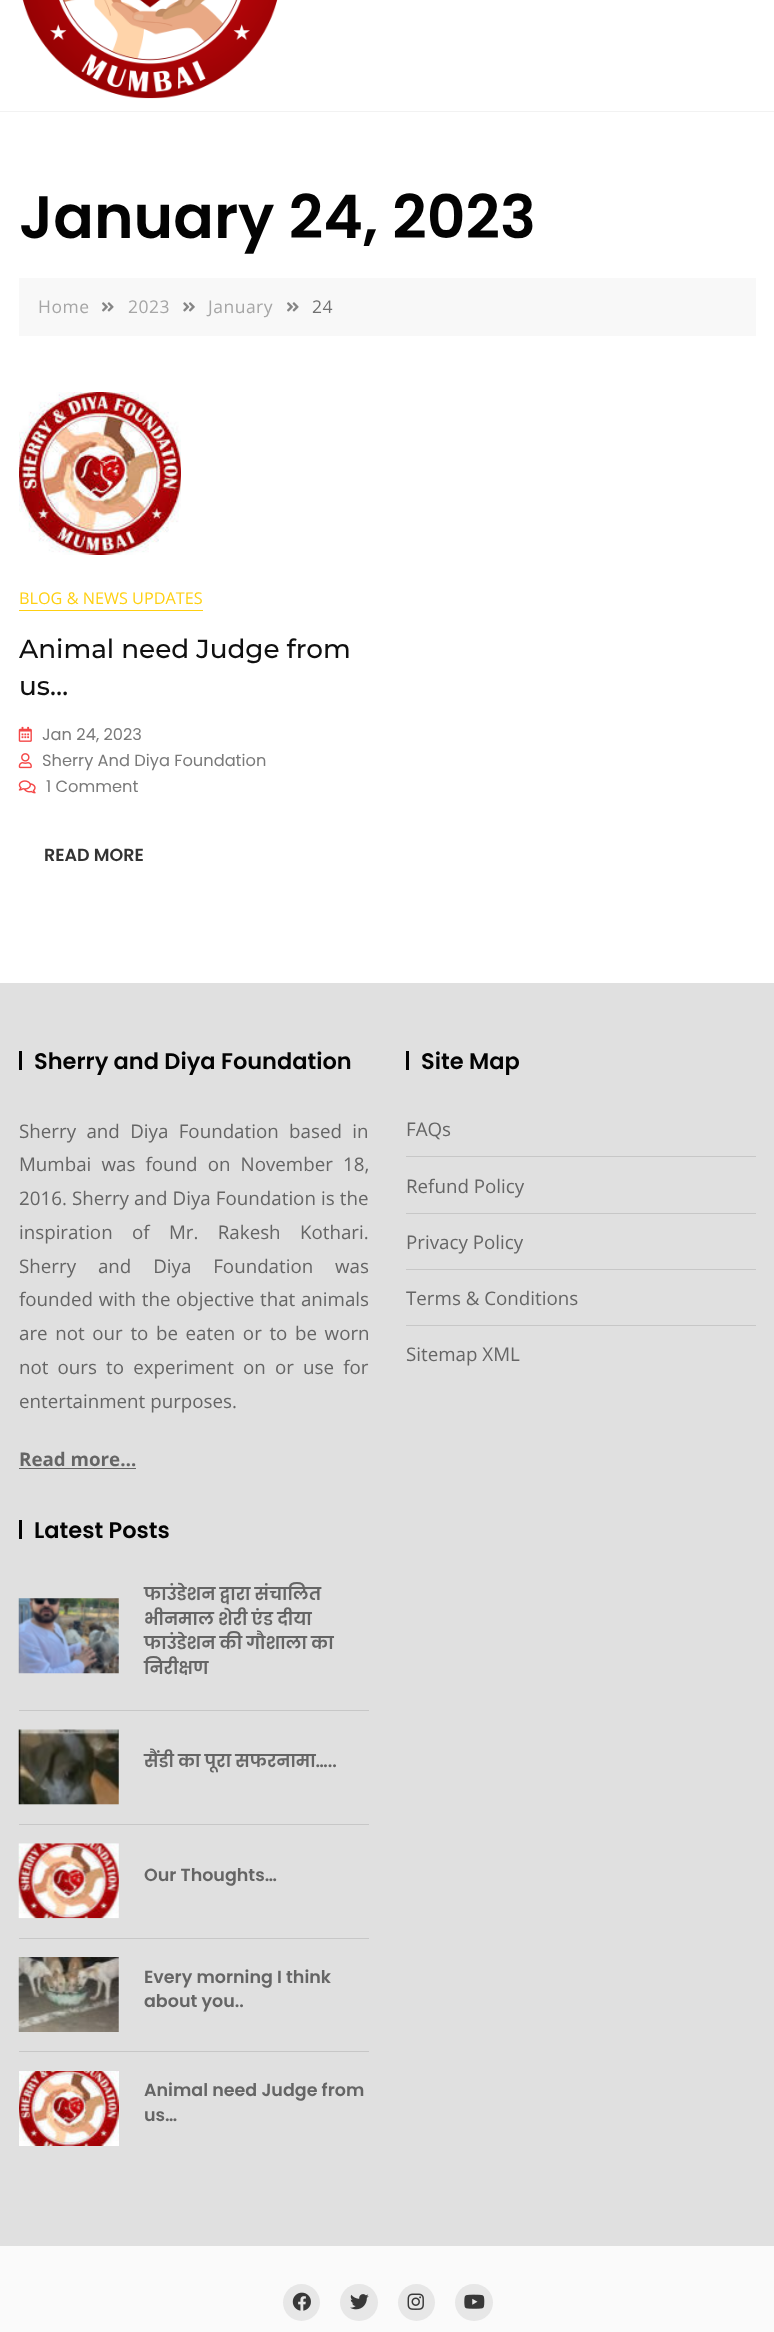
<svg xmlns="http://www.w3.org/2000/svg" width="774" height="2332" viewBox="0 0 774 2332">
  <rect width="100%" height="100%" fill="#ffffff"/>
  <image x="22" y="0" width="256" height="99" href="img1.png"/>
  <rect x="0" y="111" width="774" height="1" fill="#f2f2f2"/>
  <text x="19" y="238" font-family="Poppins" font-size="60" font-weight="600" fill="#030303">January 24, 2023</text>
  <rect x="19" y="278" width="737" height="58" fill="#f8f8f8"/>
  <text x="38" y="313" font-family="Open Sans" font-size="17.5" letter-spacing="0.5" fill="#a6a6a6">Home</text>
  <image x="102" y="302" width="12" height="10" href="img2.png"/>
  <text x="128" y="313" font-family="Open Sans" font-size="17.5" letter-spacing="0.5" fill="#a6a6a6">2023</text>
  <image x="183" y="302" width="12" height="10" href="img3.png"/>
  <text x="208" y="313" font-family="Open Sans" font-size="17.5" letter-spacing="0.5" fill="#a6a6a6">January</text>
  <image x="287" y="302" width="12" height="10" href="img2.png"/>
  <text x="312" y="313" font-family="Open Sans" font-size="17.5" letter-spacing="0.5" fill="#717171">24</text>
  <image x="19" y="392" width="162" height="163" href="img4.png"/>
  <text x="19" y="604" font-family="Open Sans" font-size="16.25" fill="#ffd012">BLOG &amp; NEWS UPDATES</text>
  <rect x="19" y="610" width="184" height="1" fill="#ffd012"/>
  <text x="19" y="658" font-family="Montserrat" font-size="26.25" font-weight="100" fill="#101010">Animal need Judge from</text>
  <text x="19" y="695" font-family="Montserrat" font-size="26.25" font-weight="100" fill="#101010">us…</text>
  <image x="18" y="726" width="14" height="16" href="img5.png"/>
  <text x="42" y="740" font-family="Poppins" font-size="16.25" fill="#7a7a7a">Jan 24, 2023</text>
  <image x="18" y="753" width="14" height="16" href="img6.png"/>
  <text x="42" y="766" font-family="Poppins" font-size="16.25" fill="#7a7a7a">Sherry And Diya Foundation</text>
  <image x="18" y="780" width="18" height="14" href="img7.png"/>
  <text x="46" y="792" font-family="Poppins" font-size="16.25" fill="#7a7a7a">1 Comment</text>
  <text x="44" y="861" font-family="Poppins" font-size="17.5" font-weight="600" fill="#333333">READ MORE</text>
  <rect x="0" y="983" width="774" height="1263" fill="#e0e0e0"/>
  <rect x="19" y="1051" width="3" height="19" fill="#030303"/>
  <text x="34" y="1069" font-family="Poppins" font-size="22.5" font-weight="600" fill="#030303">Sherry and Diya Foundation</text>
  <text x="19" y="1138" word-spacing="5.5" font-family="Open Sans" font-size="18.75" fill="#656565">Sherry and Diya Foundation based in</text>
  <text x="19" y="1171" word-spacing="5.25" font-family="Open Sans" font-size="18.75" fill="#656565">Mumbai was found on November 18,</text>
  <text x="19" y="1205" word-spacing="0.25" font-family="Open Sans" font-size="18.75" fill="#656565">2016. Sherry and Diya Foundation is the</text>
  <text x="19" y="1239" word-spacing="14.5" font-family="Open Sans" font-size="18.75" fill="#656565">inspiration of Mr. Rakesh Kothari.</text>
  <text x="19" y="1273" word-spacing="17" font-family="Open Sans" font-size="18.75" fill="#656565">Sherry and Diya Foundation was</text>
  <text x="19" y="1306" word-spacing="0.75" font-family="Open Sans" font-size="18.75" fill="#656565">founded with the objective that animals</text>
  <text x="19" y="1340" word-spacing="2.75" font-family="Open Sans" font-size="18.75" fill="#656565">are not our to be eaten or to be worn</text>
  <text x="19" y="1374" word-spacing="4.25" font-family="Open Sans" font-size="18.75" fill="#656565">not ours to experiment on or use for</text>
  <text x="19" y="1408" font-family="Open Sans" font-size="18.75" fill="#656565">entertainment purposes.</text>
  <text x="19" y="1466" font-family="Open Sans" font-size="18.75" font-weight="bold" fill="#656565">Read more…</text>
  <rect x="19" y="1468" width="117" height="1" fill="#656565"/>
  <rect x="406" y="1051" width="3" height="19" fill="#030303"/>
  <text x="421" y="1069" font-family="Poppins" font-size="22.5" font-weight="600" fill="#030303">Site Map</text>
  <rect x="406" y="1156" width="350" height="1" fill="#c7c7c7"/>
  <text x="406" y="1136" font-family="Open Sans" font-size="18.75" fill="#656565">FAQs</text>
  <rect x="406" y="1213" width="350" height="1" fill="#c7c7c7"/>
  <text x="406" y="1193" font-family="Open Sans" font-size="18.75" fill="#656565">Refund Policy</text>
  <rect x="406" y="1269" width="350" height="1" fill="#c7c7c7"/>
  <text x="406" y="1249" font-family="Open Sans" font-size="18.75" fill="#656565">Privacy Policy</text>
  <rect x="406" y="1325" width="350" height="1" fill="#c7c7c7"/>
  <text x="406" y="1305" font-family="Open Sans" font-size="18.75" fill="#656565">Terms &amp; Conditions</text>
  <text x="406" y="1361" font-family="Open Sans" font-size="18.75" fill="#656565">Sitemap XML</text>
  <rect x="19" y="1520" width="3" height="19" fill="#030303"/>
  <text x="34" y="1538" font-family="Poppins" font-size="22.5" font-weight="600" fill="#030303">Latest Posts</text>
  <rect x="19" y="1710" width="350" height="1" fill="#c7c7c7"/>
  <image x="18" y="1598" width="101" height="76" href="img8.png"/>
  <text x="144" y="1600" font-family="Poppins" font-size="17.5" font-weight="600" fill="#656565">फाउंडेशन द्वारा संचालित</text>
  <text x="144" y="1625" font-family="Poppins" font-size="17.5" font-weight="600" fill="#656565">भीनमाल शेरी एंड दीया</text>
  <text x="144" y="1649" font-family="Poppins" font-size="17.5" font-weight="600" fill="#656565">फाउंडेशन की गौशाला का</text>
  <text x="144" y="1674" font-family="Poppins" font-size="17.5" font-weight="600" fill="#656565">निरीक्षण</text>
  <rect x="19" y="1824" width="350" height="1" fill="#c7c7c7"/>
  <image x="18" y="1729" width="101" height="76" href="img9.png"/>
  <text x="144" y="1767" font-family="Poppins" font-size="17.5" font-weight="600" fill="#656565">सैंडी का पूरा सफरनामा…..</text>
  <rect x="19" y="1938" width="350" height="1" fill="#c7c7c7"/>
  <image x="18" y="1843" width="101" height="76" href="img10.png"/>
  <text x="144" y="1881" font-family="Poppins" font-size="17.5" font-weight="600" fill="#656565">Our Thoughts…</text>
  <rect x="19" y="2051" width="350" height="1" fill="#c7c7c7"/>
  <image x="18" y="1957" width="101" height="75" href="img11.png"/>
  <text x="144" y="1983" font-family="Poppins" font-size="17.5" font-weight="600" fill="#656565">Every morning I think</text>
  <text x="144" y="2007" font-family="Poppins" font-size="17.5" font-weight="600" fill="#656565">about you..</text>
  <image x="19" y="2071" width="100" height="75" href="img12.png"/>
  <text x="144" y="2096" font-family="Poppins" font-size="17.5" font-weight="600" fill="#656565">Animal need Judge from</text>
  <text x="144" y="2121" font-family="Poppins" font-size="17.5" font-weight="600" fill="#656565">us…</text>
  <rect x="0" y="2246" width="774" height="86" fill="#fafafa"/>
  <circle cx="301.5" cy="2302.5" r="18.5" fill="#e7e7e7"/>
  <image x="292" y="2292" width="19" height="19" href="img13.png"/>
  <rect x="340" y="2284" width="38" height="37" rx="18.5" fill="#e7e7e7"/>
  <image x="350" y="2294" width="19" height="16" href="img14.png"/>
  <circle cx="416.5" cy="2302.5" r="18.5" fill="#e7e7e7"/>
  <image x="407" y="2293" width="17" height="17" href="img15.png"/>
  <rect x="455" y="2284" width="38" height="37" rx="18.5" fill="#e7e7e7"/>
  <image x="464" y="2294" width="21" height="15" href="img16.png"/>
</svg>
